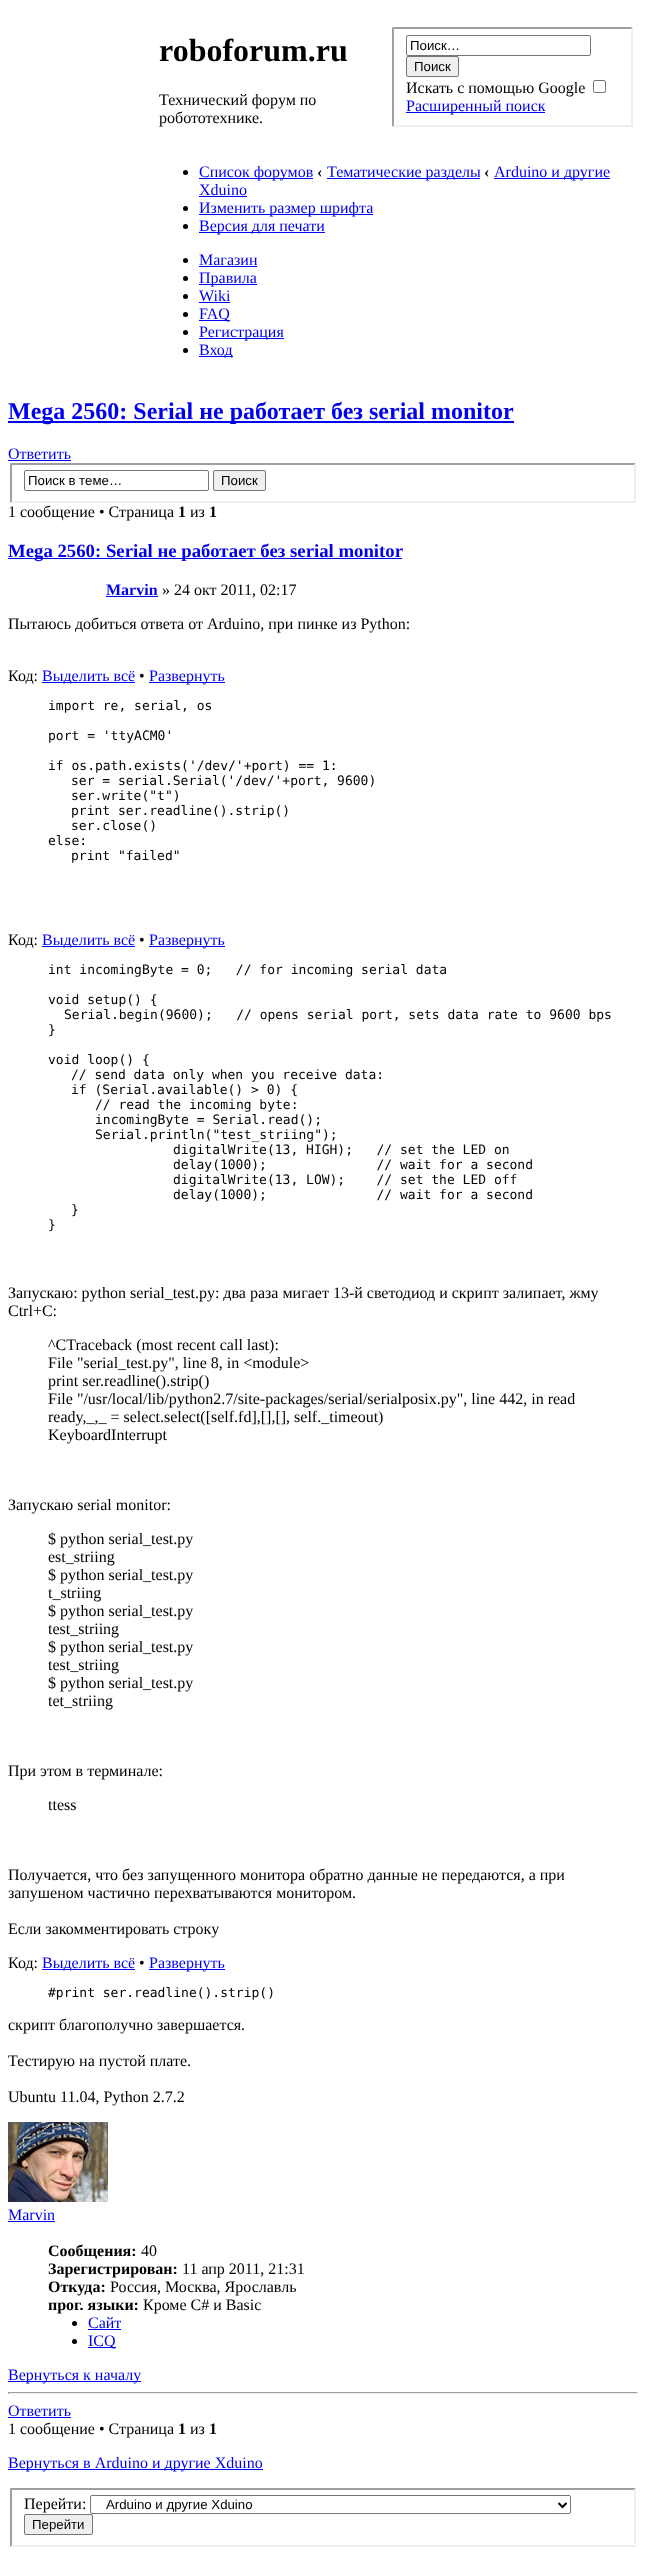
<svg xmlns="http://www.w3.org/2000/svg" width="646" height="2555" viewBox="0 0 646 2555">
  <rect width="100%" height="100%" fill="#ffffff"/>
  <text x="159" y="61" font-family="Liberation Serif" font-size="32" font-weight="bold" fill="#000000">roboforum.ru</text>
  <text x="159" y="105" font-family="Liberation Serif" font-size="16" fill="#000000">Технический форум по</text>
  <text x="159" y="123" font-family="Liberation Serif" font-size="16" fill="#000000">робототехнике.</text>
  <path d="M392 27H633L631 29H394Z" fill="#9f9f9f"/>
  <path d="M633 27V127L631 125V29Z" fill="#efefef"/>
  <path d="M633 127H392L394 125H631Z" fill="#efefef"/>
  <path d="M392 127V27L394 29V125Z" fill="#9f9f9f"/>
  <rect x="406.5" y="35.5" width="184" height="20" rx="1.5" fill="none" stroke="#767676"/>
  <text x="410" y="50" font-family="Liberation Sans" font-size="13.25" fill="#000000">Поиск…</text>
  <rect x="406.5" y="56.5" width="52" height="20" rx="1.5" fill="#efefef" stroke="#767676"/>
  <text x="414" y="71" font-family="Liberation Sans" font-size="13.25" fill="#000000">Поиск</text>
  <text x="406" y="93" font-family="Liberation Serif" font-size="16" fill="#000000">Искать с помощью Google</text>
  <rect x="593.5" y="80.5" width="12" height="12" rx="1.5" fill="none" stroke="#767676"/>
  <rect x="406" y="112" width="139" height="1" fill="#0000ee"/>
  <text x="406" y="111" font-family="Liberation Serif" font-size="16" fill="#0000ee">Расширенный поиск</text>
  <circle cx="185.5" cy="172.5" r="2.5" fill="#000000"/>
  <rect x="199" y="178" width="114" height="1" fill="#0000ee"/>
  <text x="199" y="177" font-family="Liberation Serif" font-size="16" fill="#0000ee">Список форумов</text>
  <text x="317" y="177" font-family="Liberation Serif" font-size="16" font-weight="bold" fill="#000000">‹</text>
  <rect x="327" y="178" width="153" height="1" fill="#0000ee"/>
  <text x="327" y="177" font-family="Liberation Serif" font-size="16" fill="#0000ee">Тематические разделы</text>
  <text x="484" y="177" font-family="Liberation Serif" font-size="16" font-weight="bold" fill="#000000">‹</text>
  <rect x="494" y="178" width="116" height="1" fill="#0000ee"/>
  <text x="494" y="177" font-family="Liberation Serif" font-size="16" fill="#0000ee">Arduino и другие</text>
  <text x="199" y="195" font-family="Liberation Serif" font-size="16" fill="#0000ee">Xduino</text>
  <rect x="199" y="196" width="48" height="1" fill="#0000ee"/>
  <circle cx="185.5" cy="208.5" r="2.5" fill="#000000"/>
  <rect x="199" y="214" width="174" height="1" fill="#0000ee"/>
  <text x="199" y="213" font-family="Liberation Serif" font-size="16" fill="#0000ee">Изменить размер шрифта</text>
  <circle cx="185.5" cy="226.5" r="2.5" fill="#000000"/>
  <rect x="199" y="232" width="126" height="1" fill="#0000ee"/>
  <text x="199" y="231" font-family="Liberation Serif" font-size="16" fill="#0000ee">Версия для печати</text>
  <circle cx="185.5" cy="260.5" r="2.5" fill="#000000"/>
  <text x="199" y="265" font-family="Liberation Serif" font-size="16" fill="#0000ee">Магазин</text>
  <rect x="199" y="266" width="58" height="1" fill="#0000ee"/>
  <circle cx="185.5" cy="278.5" r="2.5" fill="#000000"/>
  <rect x="199" y="284" width="58" height="1" fill="#0000ee"/>
  <text x="199" y="283" font-family="Liberation Serif" font-size="16" fill="#0000ee">Правила</text>
  <circle cx="185.5" cy="296.5" r="2.5" fill="#000000"/>
  <text x="199" y="301" font-family="Liberation Serif" font-size="16" fill="#0000ee">Wiki</text>
  <rect x="199" y="302" width="31" height="1" fill="#0000ee"/>
  <circle cx="185.5" cy="314.5" r="2.5" fill="#000000"/>
  <rect x="199" y="320" width="31" height="1" fill="#0000ee"/>
  <text x="199" y="319" font-family="Liberation Serif" font-size="16" fill="#0000ee">FAQ</text>
  <circle cx="185.5" cy="332.5" r="2.5" fill="#000000"/>
  <rect x="199" y="338" width="85" height="1" fill="#0000ee"/>
  <text x="199" y="337" font-family="Liberation Serif" font-size="16" fill="#0000ee">Регистрация</text>
  <circle cx="185.5" cy="350.5" r="2.5" fill="#000000"/>
  <rect x="199" y="356" width="34" height="1" fill="#0000ee"/>
  <text x="199" y="355" font-family="Liberation Serif" font-size="16" fill="#0000ee">Вход</text>
  <rect x="8" y="421" width="506" height="2" fill="#0000ee"/>
  <text x="8" y="419" font-family="Liberation Serif" font-size="24" font-weight="bold" fill="#0000ee">Mega 2560: Serial не работает без serial monitor</text>
  <text x="8" y="459" font-family="Liberation Serif" font-size="16" fill="#0000ee">Ответить</text>
  <rect x="8" y="460" width="63" height="1" fill="#0000ee"/>
  <path d="M10 463H636L634 465H12Z" fill="#9f9f9f"/>
  <path d="M636 463V503L634 501V465Z" fill="#efefef"/>
  <path d="M636 503H10L12 501H634Z" fill="#efefef"/>
  <path d="M10 503V463L12 465V501Z" fill="#9f9f9f"/>
  <rect x="24.5" y="470.5" width="184" height="20" rx="1.5" fill="none" stroke="#767676"/>
  <text x="28" y="485" font-family="Liberation Sans" font-size="13.25" fill="#000000">Поиск в теме…</text>
  <rect x="213.5" y="470.5" width="52" height="20" rx="1.5" fill="#efefef" stroke="#767676"/>
  <text x="221" y="485" font-family="Liberation Sans" font-size="13.25" fill="#000000">Поиск</text>
  <text x="8" y="517" font-family="Liberation Serif" font-size="16" fill="#000000">1 сообщение • Страница</text>
  <text x="178" y="517" font-family="Liberation Serif" font-size="16" font-weight="bold" fill="#000000">1</text>
  <text x="190" y="517" font-family="Liberation Serif" font-size="16" fill="#000000">из</text>
  <text x="209" y="517" font-family="Liberation Serif" font-size="16" font-weight="bold" fill="#000000">1</text>
  <rect x="8" y="558" width="394" height="1" fill="#0000ee"/>
  <text x="8" y="557" font-family="Liberation Serif" font-size="18.75" font-weight="bold" fill="#0000ee">Mega 2560: Serial не работает без serial monitor</text>
  <text x="106" y="595" font-family="Liberation Serif" font-size="16" font-weight="bold" fill="#0000ee">Marvin</text>
  <rect x="106" y="596" width="52" height="1" fill="#0000ee"/>
  <text x="162" y="595" font-family="Liberation Serif" font-size="16" fill="#000000">» 24 окт 2011, 02:17</text>
  <text x="8" y="629" font-family="Liberation Serif" font-size="16" fill="#000000">Пытаюсь добиться ответа от Arduino, при пинке из Python:</text>
  <text x="8" y="681" font-family="Liberation Serif" font-size="16" fill="#000000">Код:</text>
  <rect x="42" y="682" width="93" height="1" fill="#0000ee"/>
  <text x="42" y="681" font-family="Liberation Serif" font-size="16" fill="#0000ee">Выделить всё</text>
  <text x="139" y="681" font-family="Liberation Serif" font-size="16" fill="#000000">•</text>
  <rect x="149" y="682" width="76" height="1" fill="#0000ee"/>
  <text x="149" y="681" font-family="Liberation Serif" font-size="16" fill="#0000ee">Развернуть</text>
  <text x="48" y="710" font-family="DejaVu Sans Mono" font-size="13" fill="#000000">import re, serial, os</text>
  <text x="48" y="740" font-family="DejaVu Sans Mono" font-size="13" fill="#000000">port = 'ttyACM0'</text>
  <text x="48" y="770" font-family="DejaVu Sans Mono" font-size="13" fill="#000000">if os.path.exists('/dev/'+port) == 1:</text>
  <text x="71" y="785" font-family="DejaVu Sans Mono" font-size="13" fill="#000000">ser = serial.Serial('/dev/'+port, 9600)</text>
  <text x="71" y="800" font-family="DejaVu Sans Mono" font-size="13" fill="#000000">ser.write("t")</text>
  <text x="71" y="815" font-family="DejaVu Sans Mono" font-size="13" fill="#000000">print ser.readline().strip()</text>
  <text x="71" y="830" font-family="DejaVu Sans Mono" font-size="13" fill="#000000">ser.close()</text>
  <text x="48" y="845" font-family="DejaVu Sans Mono" font-size="13" fill="#000000">else:</text>
  <text x="71" y="860" font-family="DejaVu Sans Mono" font-size="13" fill="#000000">print "failed"</text>
  <text x="8" y="945" font-family="Liberation Serif" font-size="16" fill="#000000">Код:</text>
  <rect x="42" y="946" width="93" height="1" fill="#0000ee"/>
  <text x="42" y="945" font-family="Liberation Serif" font-size="16" fill="#0000ee">Выделить всё</text>
  <text x="139" y="945" font-family="Liberation Serif" font-size="16" fill="#000000">•</text>
  <rect x="149" y="946" width="76" height="1" fill="#0000ee"/>
  <text x="149" y="945" font-family="Liberation Serif" font-size="16" fill="#0000ee">Развернуть</text>
  <text x="48" y="974" font-family="DejaVu Sans Mono" font-size="13" fill="#000000" xml:space="preserve">int incomingByte = 0;   // for incoming serial data</text>
  <text x="48" y="1004" font-family="DejaVu Sans Mono" font-size="13" fill="#000000">void setup() {</text>
  <text x="64" y="1019" font-family="DejaVu Sans Mono" font-size="13" fill="#000000" xml:space="preserve">Serial.begin(9600);   // opens serial port, sets data rate to 9600 bps</text>
  <text x="48" y="1034" font-family="DejaVu Sans Mono" font-size="13" fill="#000000">}</text>
  <text x="48" y="1064" font-family="DejaVu Sans Mono" font-size="13" fill="#000000">void loop() {</text>
  <text x="71" y="1079" font-family="DejaVu Sans Mono" font-size="13" fill="#000000">// send data only when you receive data:</text>
  <text x="71" y="1094" font-family="DejaVu Sans Mono" font-size="13" fill="#000000">if (Serial.available() &gt; 0) {</text>
  <text x="95" y="1109" font-family="DejaVu Sans Mono" font-size="13" fill="#000000">// read the incoming byte:</text>
  <text x="95" y="1124" font-family="DejaVu Sans Mono" font-size="13" fill="#000000">incomingByte = Serial.read();</text>
  <text x="95" y="1139" font-family="DejaVu Sans Mono" font-size="13" fill="#000000">Serial.println("test_striing");</text>
  <text x="173" y="1154" font-family="DejaVu Sans Mono" font-size="13" fill="#000000" xml:space="preserve">digitalWrite(13, HIGH);   // set the LED on</text>
  <text x="173" y="1169" font-family="DejaVu Sans Mono" font-size="13" fill="#000000" xml:space="preserve">delay(1000);              // wait for a second</text>
  <text x="173" y="1184" font-family="DejaVu Sans Mono" font-size="13" fill="#000000" xml:space="preserve">digitalWrite(13, LOW);    // set the LED off</text>
  <text x="173" y="1199" font-family="DejaVu Sans Mono" font-size="13" fill="#000000" xml:space="preserve">delay(1000);              // wait for a second</text>
  <text x="71" y="1214" font-family="DejaVu Sans Mono" font-size="13" fill="#000000">}</text>
  <text x="48" y="1229" font-family="DejaVu Sans Mono" font-size="13" fill="#000000">}</text>
  <text x="8" y="1298" font-family="Liberation Serif" font-size="16" fill="#000000">Запускаю: python serial_test.py: два раза мигает 13-й светодиод и скрипт залипает, жму</text>
  <text x="8" y="1316" font-family="Liberation Serif" font-size="16" fill="#000000">Ctrl+C:</text>
  <text x="48" y="1350" font-family="Liberation Serif" font-size="16" fill="#000000">^CTraceback (most recent call last):</text>
  <text x="48" y="1368" font-family="Liberation Serif" font-size="16" fill="#000000">File "serial_test.py", line 8, in &lt;module&gt;</text>
  <text x="48" y="1386" font-family="Liberation Serif" font-size="16" fill="#000000">print ser.readline().strip()</text>
  <text x="48" y="1404" font-family="Liberation Serif" font-size="16" fill="#000000">File "/usr/local/lib/python2.7/site-packages/serial/serialposix.py", line 442, in read</text>
  <text x="48" y="1422" font-family="Liberation Serif" font-size="16" fill="#000000">ready,_,_ = select.select([self.fd],[],[], self._timeout)</text>
  <text x="48" y="1440" font-family="Liberation Serif" font-size="16" fill="#000000">KeyboardInterrupt</text>
  <text x="8" y="1510" font-family="Liberation Serif" font-size="16" fill="#000000">Запускаю serial monitor:</text>
  <text x="48" y="1544" font-family="Liberation Serif" font-size="16" fill="#000000">$ python serial_test.py</text>
  <text x="48" y="1562" font-family="Liberation Serif" font-size="16" fill="#000000">est_striing</text>
  <text x="48" y="1580" font-family="Liberation Serif" font-size="16" fill="#000000">$ python serial_test.py</text>
  <text x="48" y="1598" font-family="Liberation Serif" font-size="16" fill="#000000">t_striing</text>
  <text x="48" y="1616" font-family="Liberation Serif" font-size="16" fill="#000000">$ python serial_test.py</text>
  <text x="48" y="1634" font-family="Liberation Serif" font-size="16" fill="#000000">test_striing</text>
  <text x="48" y="1652" font-family="Liberation Serif" font-size="16" fill="#000000">$ python serial_test.py</text>
  <text x="48" y="1670" font-family="Liberation Serif" font-size="16" fill="#000000">test_striing</text>
  <text x="48" y="1688" font-family="Liberation Serif" font-size="16" fill="#000000">$ python serial_test.py</text>
  <text x="48" y="1706" font-family="Liberation Serif" font-size="16" fill="#000000">tet_striing</text>
  <text x="8" y="1776" font-family="Liberation Serif" font-size="16" fill="#000000">При этом в терминале:</text>
  <text x="48" y="1810" font-family="Liberation Serif" font-size="16" fill="#000000">ttess</text>
  <text x="8" y="1880" font-family="Liberation Serif" font-size="16" fill="#000000">Получается, что без запущенного монитора обратно данные не передаются, а при</text>
  <text x="8" y="1898" font-family="Liberation Serif" font-size="16" fill="#000000">запушеном частично перехватываются монитором.</text>
  <text x="8" y="1934" font-family="Liberation Serif" font-size="16" fill="#000000">Если закомментировать строку</text>
  <text x="8" y="1968" font-family="Liberation Serif" font-size="16" fill="#000000">Код:</text>
  <rect x="42" y="1969" width="93" height="1" fill="#0000ee"/>
  <text x="42" y="1968" font-family="Liberation Serif" font-size="16" fill="#0000ee">Выделить всё</text>
  <text x="139" y="1968" font-family="Liberation Serif" font-size="16" fill="#000000">•</text>
  <rect x="149" y="1969" width="76" height="1" fill="#0000ee"/>
  <text x="149" y="1968" font-family="Liberation Serif" font-size="16" fill="#0000ee">Развернуть</text>
  <text x="48" y="1997" font-family="DejaVu Sans Mono" font-size="13" fill="#000000">#print ser.readline().strip()</text>
  <text x="8" y="2030" font-family="Liberation Serif" font-size="16" fill="#000000">скрипт благополучно завершается.</text>
  <text x="8" y="2066" font-family="Liberation Serif" font-size="16" fill="#000000">Тестирую на пустой плате.</text>
  <text x="8" y="2102" font-family="Liberation Serif" font-size="16" fill="#000000">Ubuntu 11.04, Python 2.7.2</text>
  <image x="8" y="2122" width="100" height="80" href="img1.png"/>
  <text x="8" y="2220" font-family="Liberation Serif" font-size="16" fill="#0000ee">Marvin</text>
  <rect x="8" y="2221" width="47" height="1" fill="#0000ee"/>
  <text x="48" y="2256" font-family="Liberation Serif" font-size="16" font-weight="bold" fill="#000000">Сообщения:</text>
  <text x="141" y="2256" font-family="Liberation Serif" font-size="16" fill="#000000">40</text>
  <text x="48" y="2274" font-family="Liberation Serif" font-size="16" font-weight="bold" fill="#000000">Зарегистрирован:</text>
  <text x="182" y="2274" font-family="Liberation Serif" font-size="16" fill="#000000">11 апр 2011, 21:31</text>
  <text x="48" y="2292" font-family="Liberation Serif" font-size="16" font-weight="bold" fill="#000000">Откуда:</text>
  <text x="110" y="2292" font-family="Liberation Serif" font-size="16" fill="#000000">Россия, Москва, Ярославль</text>
  <text x="48" y="2310" font-family="Liberation Serif" font-size="16" font-weight="bold" fill="#000000">прог. языки:</text>
  <text x="143" y="2310" font-family="Liberation Serif" font-size="16" fill="#000000">Кроме C# и Basic</text>
  <circle cx="74.5" cy="2323.5" r="2.5" fill="#000000"/>
  <text x="88" y="2328" font-family="Liberation Serif" font-size="16" fill="#0000ee">Сайт</text>
  <rect x="88" y="2329" width="33" height="1" fill="#0000ee"/>
  <circle cx="74.5" cy="2341.5" r="2.5" fill="#000000"/>
  <rect x="88" y="2347" width="28" height="1" fill="#0000ee"/>
  <text x="88" y="2346" font-family="Liberation Serif" font-size="16" fill="#0000ee">ICQ</text>
  <rect x="8" y="2381" width="133" height="1" fill="#0000ee"/>
  <text x="8" y="2380" font-family="Liberation Serif" font-size="16" fill="#0000ee">Вернуться к началу</text>
  <rect x="8" y="2392" width="630" height="1" fill="#9f9f9f"/>
  <rect x="637" y="2392" width="1" height="2" fill="#eeeeee"/>
  <rect x="8" y="2393" width="630" height="1" fill="#eeeeee"/>
  <rect x="8" y="2392" width="1" height="2" fill="#9f9f9f"/>
  <text x="8" y="2416" font-family="Liberation Serif" font-size="16" fill="#0000ee">Ответить</text>
  <rect x="8" y="2417" width="63" height="1" fill="#0000ee"/>
  <text x="8" y="2434" font-family="Liberation Serif" font-size="16" fill="#000000">1 сообщение • Страница</text>
  <text x="178" y="2434" font-family="Liberation Serif" font-size="16" font-weight="bold" fill="#000000">1</text>
  <text x="190" y="2434" font-family="Liberation Serif" font-size="16" fill="#000000">из</text>
  <text x="209" y="2434" font-family="Liberation Serif" font-size="16" font-weight="bold" fill="#000000">1</text>
  <rect x="8" y="2469" width="255" height="1" fill="#0000ee"/>
  <text x="8" y="2468" font-family="Liberation Serif" font-size="16" fill="#0000ee">Вернуться в Arduino и другие Xduino</text>
  <path d="M10 2488H636L634 2490H12Z" fill="#9f9f9f"/>
  <path d="M636 2488V2547L634 2545V2490Z" fill="#efefef"/>
  <path d="M636 2547H10L12 2545H634Z" fill="#efefef"/>
  <path d="M10 2547V2488L12 2490V2545Z" fill="#9f9f9f"/>
  <text x="24" y="2509" font-family="Liberation Serif" font-size="16" fill="#000000">Перейти:</text>
  <rect x="90.5" y="2495.5" width="480" height="18" rx="1.5" fill="none" stroke="#767676"/>
  <path d="M558.5 2503L562.5 2507L566.5 2503" fill="none" stroke="#000000" stroke-width="2"/>
  <text x="106" y="2509" font-family="Liberation Sans" font-size="13.25" fill="#000000">Arduino и другие Xduino</text>
  <rect x="24.5" y="2514.5" width="68" height="20" rx="1.5" fill="#efefef" stroke="#767676"/>
  <text x="32" y="2529" font-family="Liberation Sans" font-size="13.25" fill="#000000">Перейти</text>
</svg>
